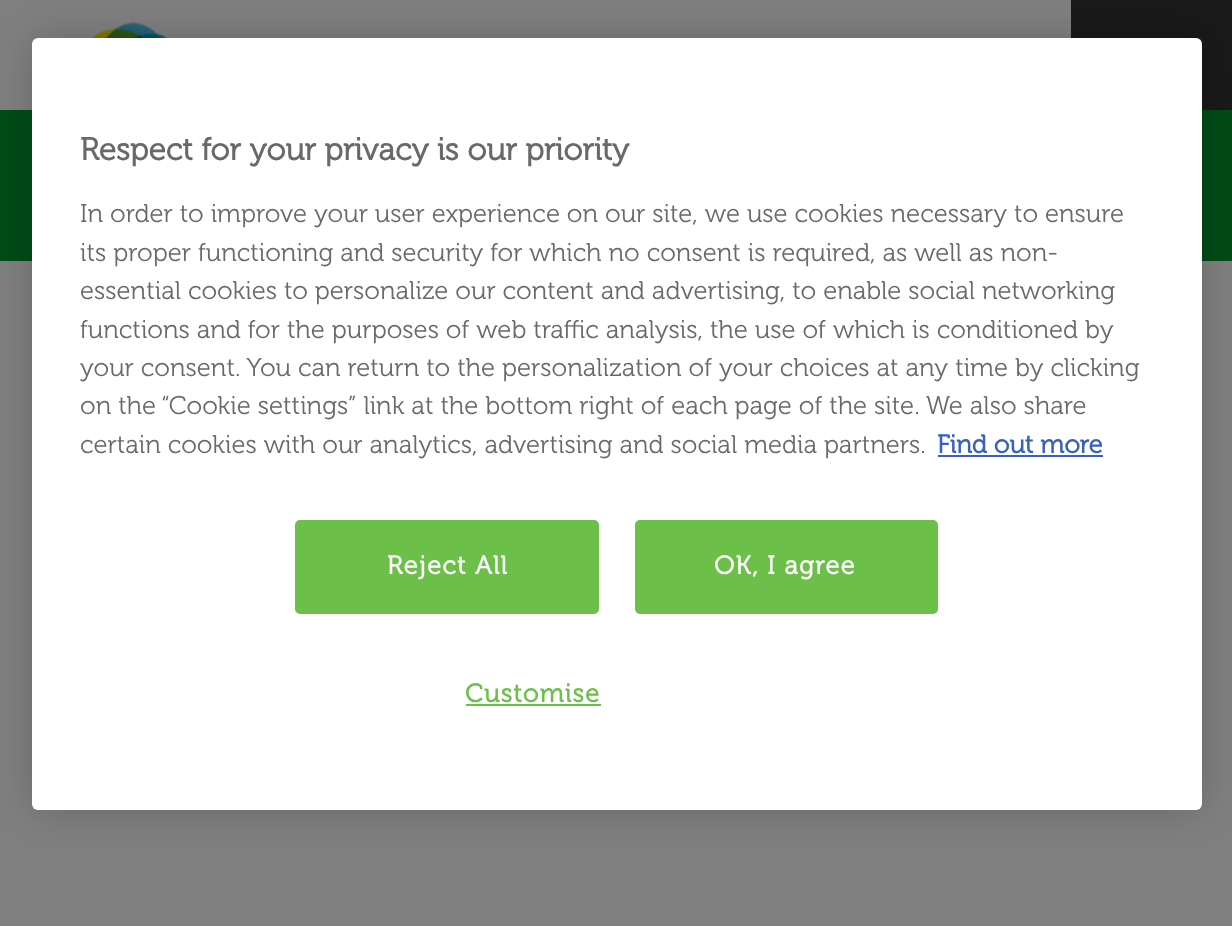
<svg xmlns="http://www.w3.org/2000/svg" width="1232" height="926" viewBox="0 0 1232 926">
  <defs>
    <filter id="blur1" x="-50%" y="-200%" width="200%" height="500%"><feGaussianBlur stdDeviation="20"/></filter>
  </defs>
  <rect width="100%" height="100%" fill="#808080"/>
  <image x="90" y="22" width="78" height="16" href="img1.png"/>
  <rect x="1071" y="0" width="161" height="110" fill="#191919"/>
  <rect x="0" y="110" width="1232" height="151" fill="#004b16"/>
  <rect x="32" y="38" width="1170" height="772" rx="6" fill="#000000" fill-opacity="0.2" filter="url(#blur1)"/>
  <rect x="32" y="38" width="1170" height="772" rx="6" fill="#ffffff"/>
  <text x="80" y="160" font-family="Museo" font-size="31.5" font-weight="bold" fill="#696969">Respect for your privacy is our priority</text>
  <text x="80" y="222" font-family="Museo" font-size="25.6" fill="#696969">In order to improve your user experience on our site, we use cookies necessary to ensure</text>
  <text x="80" y="261" font-family="Museo" font-size="25.6" fill="#696969">its proper functioning and security for which no consent is required, as well as non-</text>
  <text x="80" y="299" font-family="Museo" font-size="25.6" fill="#696969">essential cookies to personalize our content and advertising, to enable social networking</text>
  <text x="80" y="338" font-family="Museo" font-size="25.6" fill="#696969">functions and for the purposes of web traffic analysis, the use of which is conditioned by</text>
  <text x="80" y="376" font-family="Museo" font-size="25.6" fill="#696969">your consent. You can return to the personalization of your choices at any time by clicking</text>
  <text x="80" y="414" font-family="Museo" font-size="25.6" fill="#696969">on the “Cookie settings” link at the bottom right of each page of the site. We also share</text>
  <text x="80" y="453" font-family="Museo" font-size="25.6" fill="#696969">certain cookies with our analytics, advertising and social media partners.</text>
  <text x="937" y="453" font-family="Museo" font-size="25.6" font-weight="bold" fill="#3860be">Find out more</text>
  <rect x="938" y="455" width="165" height="2" fill="#3860be"/>
  <rect x="296" y="521" width="302" height="92" rx="4" fill="#6cc04a" stroke="#6cc04a" stroke-width="2"/>
  <text x="387" y="574" font-family="Museo" font-size="25.6" font-weight="bold" letter-spacing="1.25" fill="#ffffff">Reject All</text>
  <rect x="636" y="521" width="301" height="92" rx="4" fill="#6cc04a" stroke="#6cc04a" stroke-width="2"/>
  <text x="714" y="574" font-family="Museo" font-size="25.6" font-weight="bold" letter-spacing="1.25" fill="#ffffff">OK, I agree</text>
  <text x="465" y="702" font-family="Museo" font-size="25.6" font-weight="bold" letter-spacing="1.25" fill="#6cc04a">Customise</text>
  <rect x="466" y="704" width="135" height="2" fill="#6cc04a"/>
</svg>
